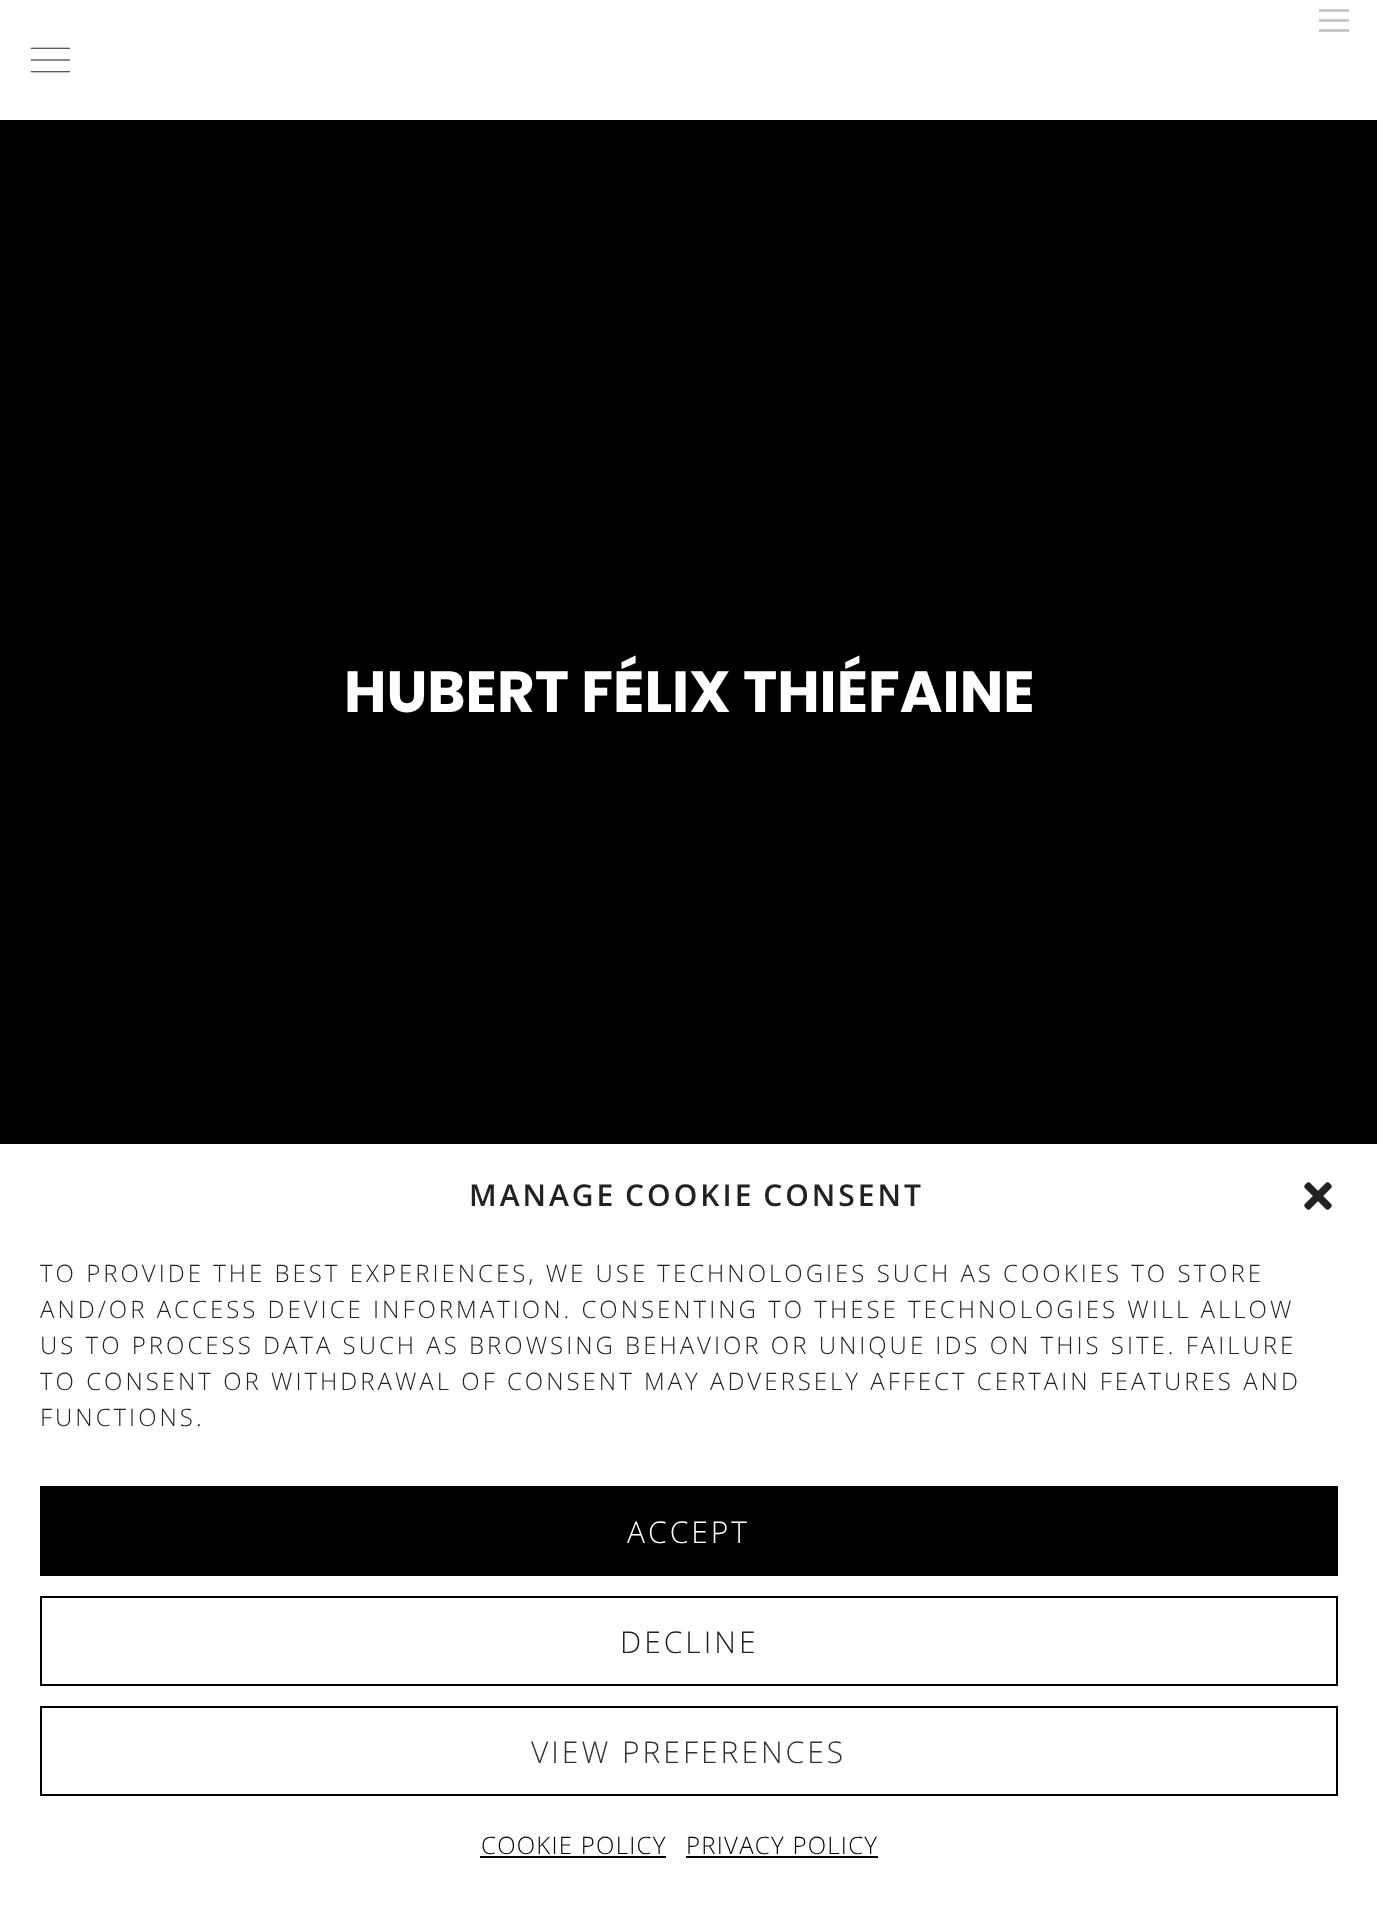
<svg xmlns="http://www.w3.org/2000/svg" width="1377" height="1905" viewBox="0 0 1377 1905">
  <rect width="100%" height="100%" fill="#ffffff"/>
  <image x="1319" y="9" width="30" height="23" href="img1.png"/>
  <image x="30" y="47" width="40" height="26" href="img2.png"/>
  <rect x="0" y="120" width="1377" height="1024" fill="#000000"/>
  <text x="344" y="712" font-family="Poppins" font-size="58" font-weight="bold" fill="#ffffff">HUBERT FÉLIX THIÉFAINE</text>
  <text x="469" y="1206" word-spacing="-2" font-family="Open Sans" font-size="30" font-weight="600" letter-spacing="3" fill="#222222">MANAGE COOKIE CONSENT</text>
  <image x="1304" y="1182" width="28" height="28" href="img3.png"/>
  <text x="40" y="1282" font-family="Open Sans" font-size="24" font-weight="300" letter-spacing="3" fill="#222222">TO PROVIDE THE BEST EXPERIENCES, WE USE TECHNOLOGIES SUCH AS COOKIES TO STORE</text>
  <text x="40" y="1318" font-family="Open Sans" font-size="24" font-weight="300" letter-spacing="3" fill="#222222">AND/OR ACCESS DEVICE INFORMATION. CONSENTING TO THESE TECHNOLOGIES WILL ALLOW</text>
  <text x="40" y="1354" font-family="Open Sans" font-size="24" font-weight="300" letter-spacing="3" fill="#222222">US TO PROCESS DATA SUCH AS BROWSING BEHAVIOR OR UNIQUE IDS ON THIS SITE. FAILURE</text>
  <text x="40" y="1390" font-family="Open Sans" font-size="24" font-weight="300" letter-spacing="3" fill="#222222">TO CONSENT OR WITHDRAWAL OF CONSENT MAY ADVERSELY AFFECT CERTAIN FEATURES AND</text>
  <text x="40" y="1426" font-family="Open Sans" font-size="24" font-weight="300" letter-spacing="3" fill="#222222">FUNCTIONS.</text>
  <rect x="40" y="1486" width="1298" height="90" fill="#000000"/>
  <text x="627" y="1543" font-family="Open Sans" font-size="30" font-weight="300" letter-spacing="3" fill="#ffffff">ACCEPT</text>
  <rect x="41" y="1597" width="1296" height="88" fill="none" stroke="#000000" stroke-width="2"/>
  <text x="620" y="1653" font-family="Open Sans" font-size="30" font-weight="300" letter-spacing="3" fill="#222222">DECLINE</text>
  <rect x="41" y="1707" width="1296" height="88" fill="none" stroke="#000000" stroke-width="2"/>
  <text x="531" y="1763" font-family="Open Sans" font-size="30" font-weight="300" letter-spacing="3" fill="#333333">VIEW PREFERENCES</text>
  <text x="481" y="1854" font-family="Open Sans" font-size="24" font-weight="300" letter-spacing="1.25" fill="#000000">COOKIE POLICY</text>
  <rect x="480" y="1856" width="186" height="2" fill="#000000"/>
  <text x="686" y="1854" font-family="Open Sans" font-size="24" font-weight="300" letter-spacing="1.25" fill="#000000">PRIVACY POLICY</text>
  <rect x="686" y="1856" width="192" height="2" fill="#000000"/>
</svg>
